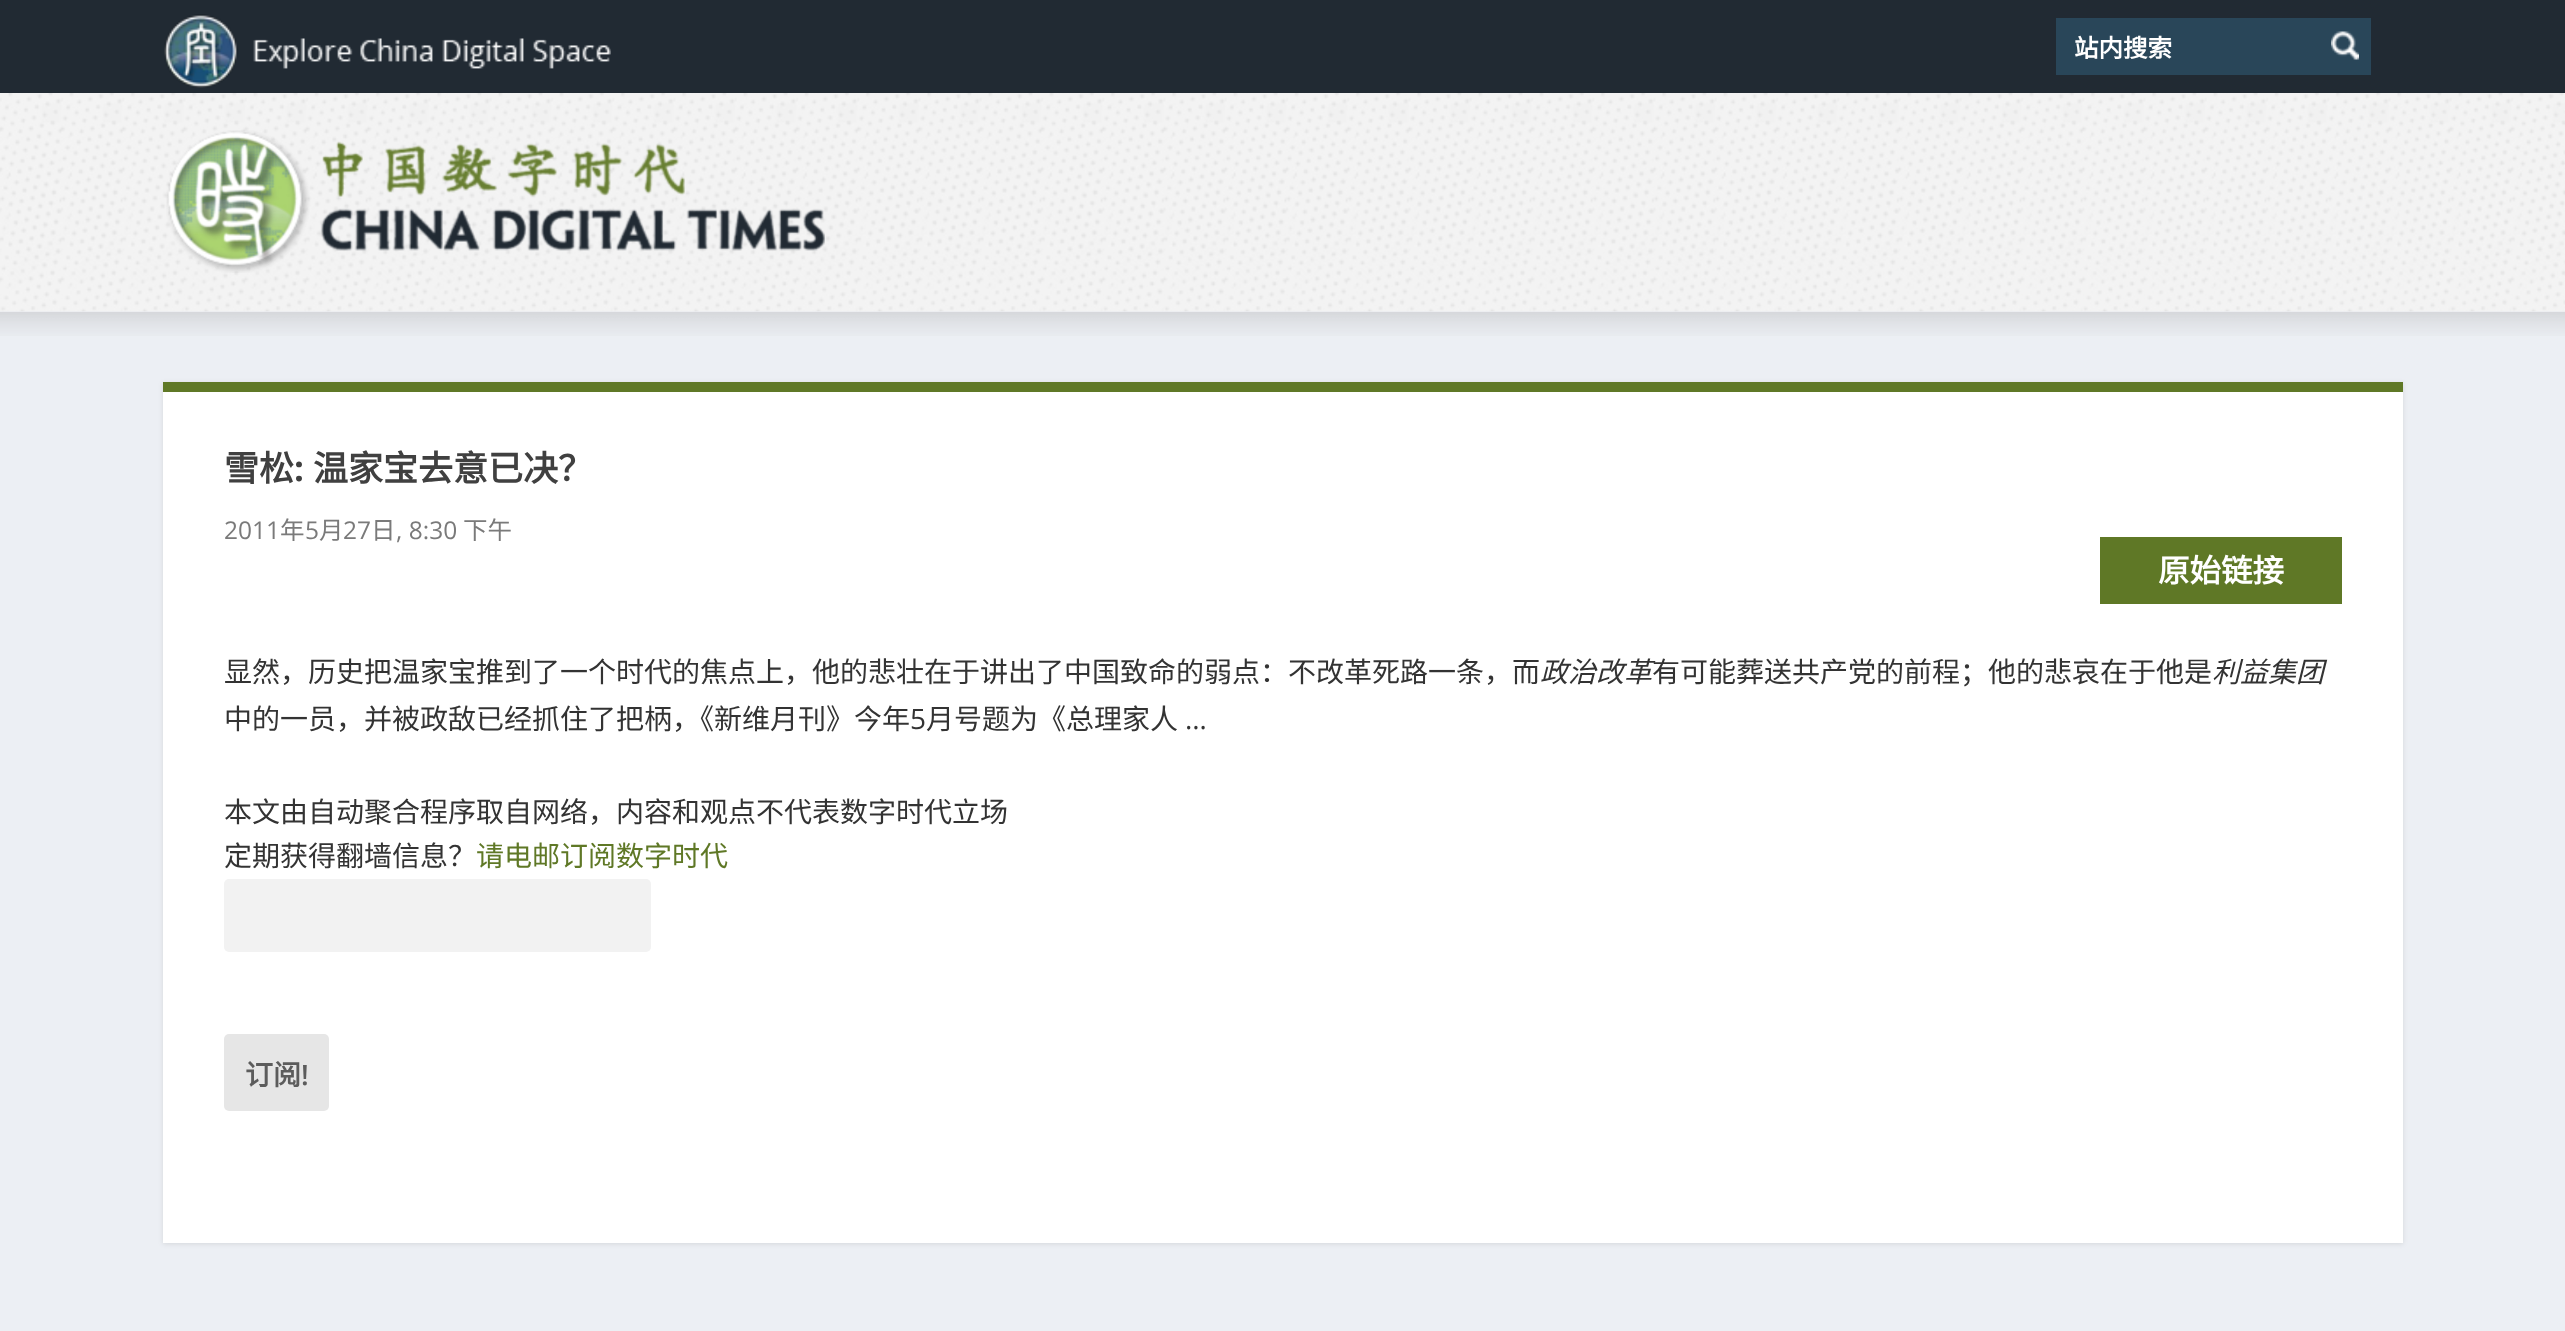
<svg xmlns="http://www.w3.org/2000/svg" width="2565" height="1331" viewBox="0 0 2565 1331">
  <defs>
    <filter id="blur1" x="-50%" y="-200%" width="200%" height="500%"><feGaussianBlur stdDeviation="2.5"/></filter>
  </defs>
  <rect width="100%" height="100%" fill="#eceff4"/>
  <rect x="0" y="0" width="2565" height="93" fill="#212a33"/>
  <image x="164" y="14" width="447" height="74" href="img1.png"/>
  <rect x="2056" y="18" width="315" height="57" fill="#294659"/>
  <text x="2074" y="57" font-family="Noto Sans CJK SC" font-size="24.5" font-weight="bold" fill="#ffffff">站内搜索</text>
  <image x="2331" y="31" width="28" height="29" href="img2.png"/>
  <image x="0" y="311" width="2565" height="25" href="img5.png"/>
  <image x="0" y="93" width="2565" height="219" href="img3.png"/>
  <image x="166" y="130" width="659" height="143" href="img4.png"/>
  <rect x="163" y="383" width="2240" height="861" fill="#000000" fill-opacity="0.1" filter="url(#blur1)"/>
  <rect x="163" y="392" width="2240" height="851" fill="#ffffff"/>
  <rect x="163" y="382" width="2240" height="10" fill="#5f7826"/>
  <text x="224" y="481" font-family="Noto Sans CJK SC" font-size="35" font-weight="bold" fill="#404040">雪松</text>
  <text x="294" y="481" font-family="Open Sans" font-size="35" font-weight="bold" fill="#404040">:</text>
  <text x="313" y="481" font-family="Noto Sans CJK SC" font-size="35" font-weight="bold" fill="#404040">温家宝去意已决？</text>
  <text x="224" y="539" font-family="Open Sans" font-size="24.5" fill="#7a7a7a">2011</text>
  <text x="280" y="539" font-family="Noto Sans CJK SC" font-size="24.5" fill="#7a7a7a">年</text>
  <text x="305" y="539" font-family="Open Sans" font-size="24.5" fill="#7a7a7a">5</text>
  <text x="319" y="539" font-family="Noto Sans CJK SC" font-size="24.5" fill="#7a7a7a">月</text>
  <text x="343" y="539" font-family="Open Sans" font-size="24.5" fill="#7a7a7a">27</text>
  <text x="371" y="539" font-family="Noto Sans CJK SC" font-size="24.5" fill="#7a7a7a">日</text>
  <text x="396" y="539" font-family="Open Sans" font-size="24.5" fill="#7a7a7a">, 8:30</text>
  <text x="463" y="539" font-family="Noto Sans CJK SC" font-size="24.5" fill="#7a7a7a">下午</text>
  <rect x="2100" y="537" width="242" height="67" fill="#5f7826"/>
  <text x="2158" y="582" font-family="Noto Sans CJK SC" font-size="31.5" font-weight="bold" fill="#ffffff">原始链接</text>
  <text x="224" y="682" font-family="Noto Sans CJK SC" font-size="28" fill="#333333">显然，历史把温家宝推到了一个时代的焦点上，他的悲壮在于讲出了中国致命的弱点：不改革死路一条，而</text>
  <text x="1540" y="682" font-family="Noto Sans CJK SC" font-size="28" font-style="italic" fill="#333333">政治改革</text>
  <text x="1652" y="682" font-family="Noto Sans CJK SC" font-size="28" fill="#333333">有可能葬送共产党的前程；他的悲哀在于他是</text>
  <text x="2212" y="682" font-family="Noto Sans CJK SC" font-size="28" font-style="italic" fill="#333333">利益集团</text>
  <text x="224" y="729" font-family="Noto Sans CJK SC" font-size="28" fill="#333333">中的一员，并被政敌已经抓住了把柄，《新维月刊》今年</text>
  <text x="910" y="729" font-family="Open Sans" font-size="28" fill="#333333">5</text>
  <text x="926" y="729" font-family="Noto Sans CJK SC" font-size="28" fill="#333333">月号题为《总理家人</text>
  <text x="1185" y="729" font-family="Open Sans" font-size="28" fill="#333333">…</text>
  <text x="224" y="822" font-family="Noto Sans CJK SC" font-size="28" fill="#333333">本文由自动聚合程序取自网络，内容和观点不代表数字时代立场</text>
  <text x="224" y="866" font-family="Noto Sans CJK SC" font-size="28" fill="#333333">定期获得翻墙信息？</text>
  <text x="476" y="866" font-family="Noto Sans CJK SC" font-size="28" fill="#5f7826">请电邮订阅数字时代</text>
  <rect x="224" y="879" width="427" height="73" rx="5" fill="#f2f2f2"/>
  <rect x="224" y="1034" width="105" height="77" rx="5" fill="#e6e6e6"/>
  <text x="245" y="1085" font-family="Noto Sans CJK SC" font-size="28" font-weight="bold" fill="#5c5c5c">订阅</text>
  <text x="301" y="1085" font-family="Open Sans" font-size="28" font-weight="600" fill="#5c5c5c">!</text>
</svg>
